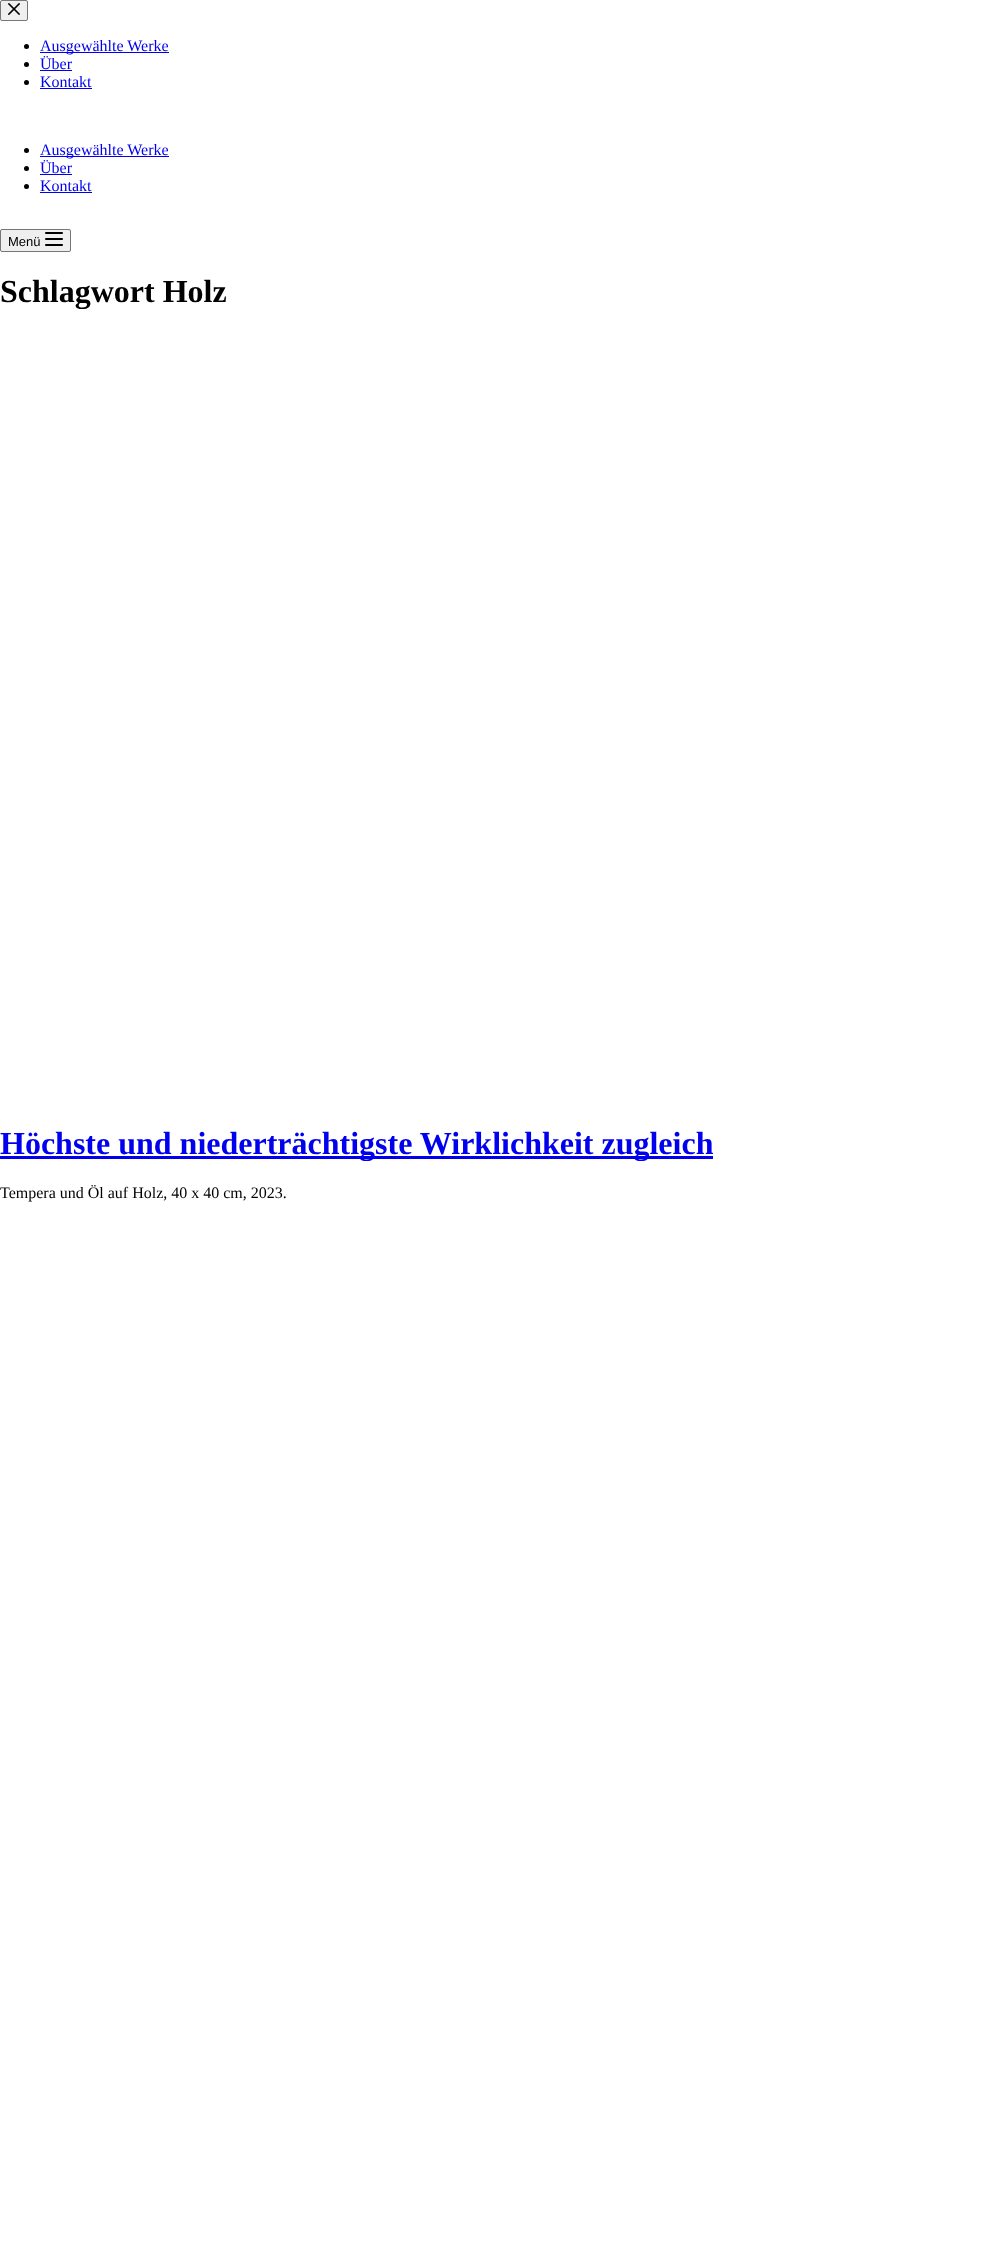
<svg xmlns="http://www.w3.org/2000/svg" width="987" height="2265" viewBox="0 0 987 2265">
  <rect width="100%" height="100%" fill="#ffffff"/>
  <rect x="0.5" y="0.5" width="27" height="20" rx="1.5" fill="#efefef" stroke="#767676"/>
  <image x="8" y="3" width="12" height="12" href="img1.png"/>
  <circle cx="26.5" cy="46.5" r="2.5" fill="#000000"/>
  <rect x="40" y="52" width="129" height="1" fill="#0000ee"/>
  <text x="40" y="51" font-family="Liberation Serif" font-size="16" fill="#0000ee">Ausgewählte Werke</text>
  <circle cx="26.5" cy="64.5" r="2.5" fill="#000000"/>
  <text x="40" y="69" font-family="Liberation Serif" font-size="16" fill="#0000ee">Über</text>
  <rect x="40" y="70" width="32" height="1" fill="#0000ee"/>
  <circle cx="26.5" cy="82.5" r="2.5" fill="#000000"/>
  <text x="40" y="87" font-family="Liberation Serif" font-size="16" fill="#0000ee">Kontakt</text>
  <rect x="40" y="88" width="52" height="1" fill="#0000ee"/>
  <circle cx="26.5" cy="150.5" r="2.5" fill="#000000"/>
  <rect x="40" y="156" width="129" height="1" fill="#0000ee"/>
  <text x="40" y="155" font-family="Liberation Serif" font-size="16" fill="#0000ee">Ausgewählte Werke</text>
  <circle cx="26.5" cy="168.5" r="2.5" fill="#000000"/>
  <text x="40" y="173" font-family="Liberation Serif" font-size="16" fill="#0000ee">Über</text>
  <rect x="40" y="174" width="32" height="1" fill="#0000ee"/>
  <circle cx="26.5" cy="186.5" r="2.5" fill="#000000"/>
  <text x="40" y="191" font-family="Liberation Serif" font-size="16" fill="#0000ee">Kontakt</text>
  <rect x="40" y="192" width="52" height="1" fill="#0000ee"/>
  <rect x="0.5" y="229.5" width="70" height="22" rx="1.5" fill="#efefef" stroke="#767676"/>
  <rect x="45" y="232" width="18" height="2" rx="1" fill="#000000"/>
  <text x="8" y="246" font-family="Liberation Sans" font-size="13" fill="#000000">Menü</text>
  <rect x="45" y="238" width="18" height="2" rx="1" fill="#000000"/>
  <rect x="45" y="244" width="18" height="2" rx="1" fill="#000000"/>
  <text x="0" y="302" font-family="Liberation Serif" font-size="32" font-weight="bold" fill="#000000">Schlagwort Holz</text>
  <rect x="0" y="1156" width="713" height="3" fill="#0000ee"/>
  <text x="0" y="1154" font-family="Liberation Serif" font-size="32" font-weight="bold" fill="#0000ee">Höchste und niederträchtigste Wirklichkeit zugleich</text>
  <text x="0" y="1198" font-family="Liberation Serif" font-size="16" fill="#000000">Tempera und Öl auf Holz, 40 x 40 cm, 2023.</text>
</svg>
